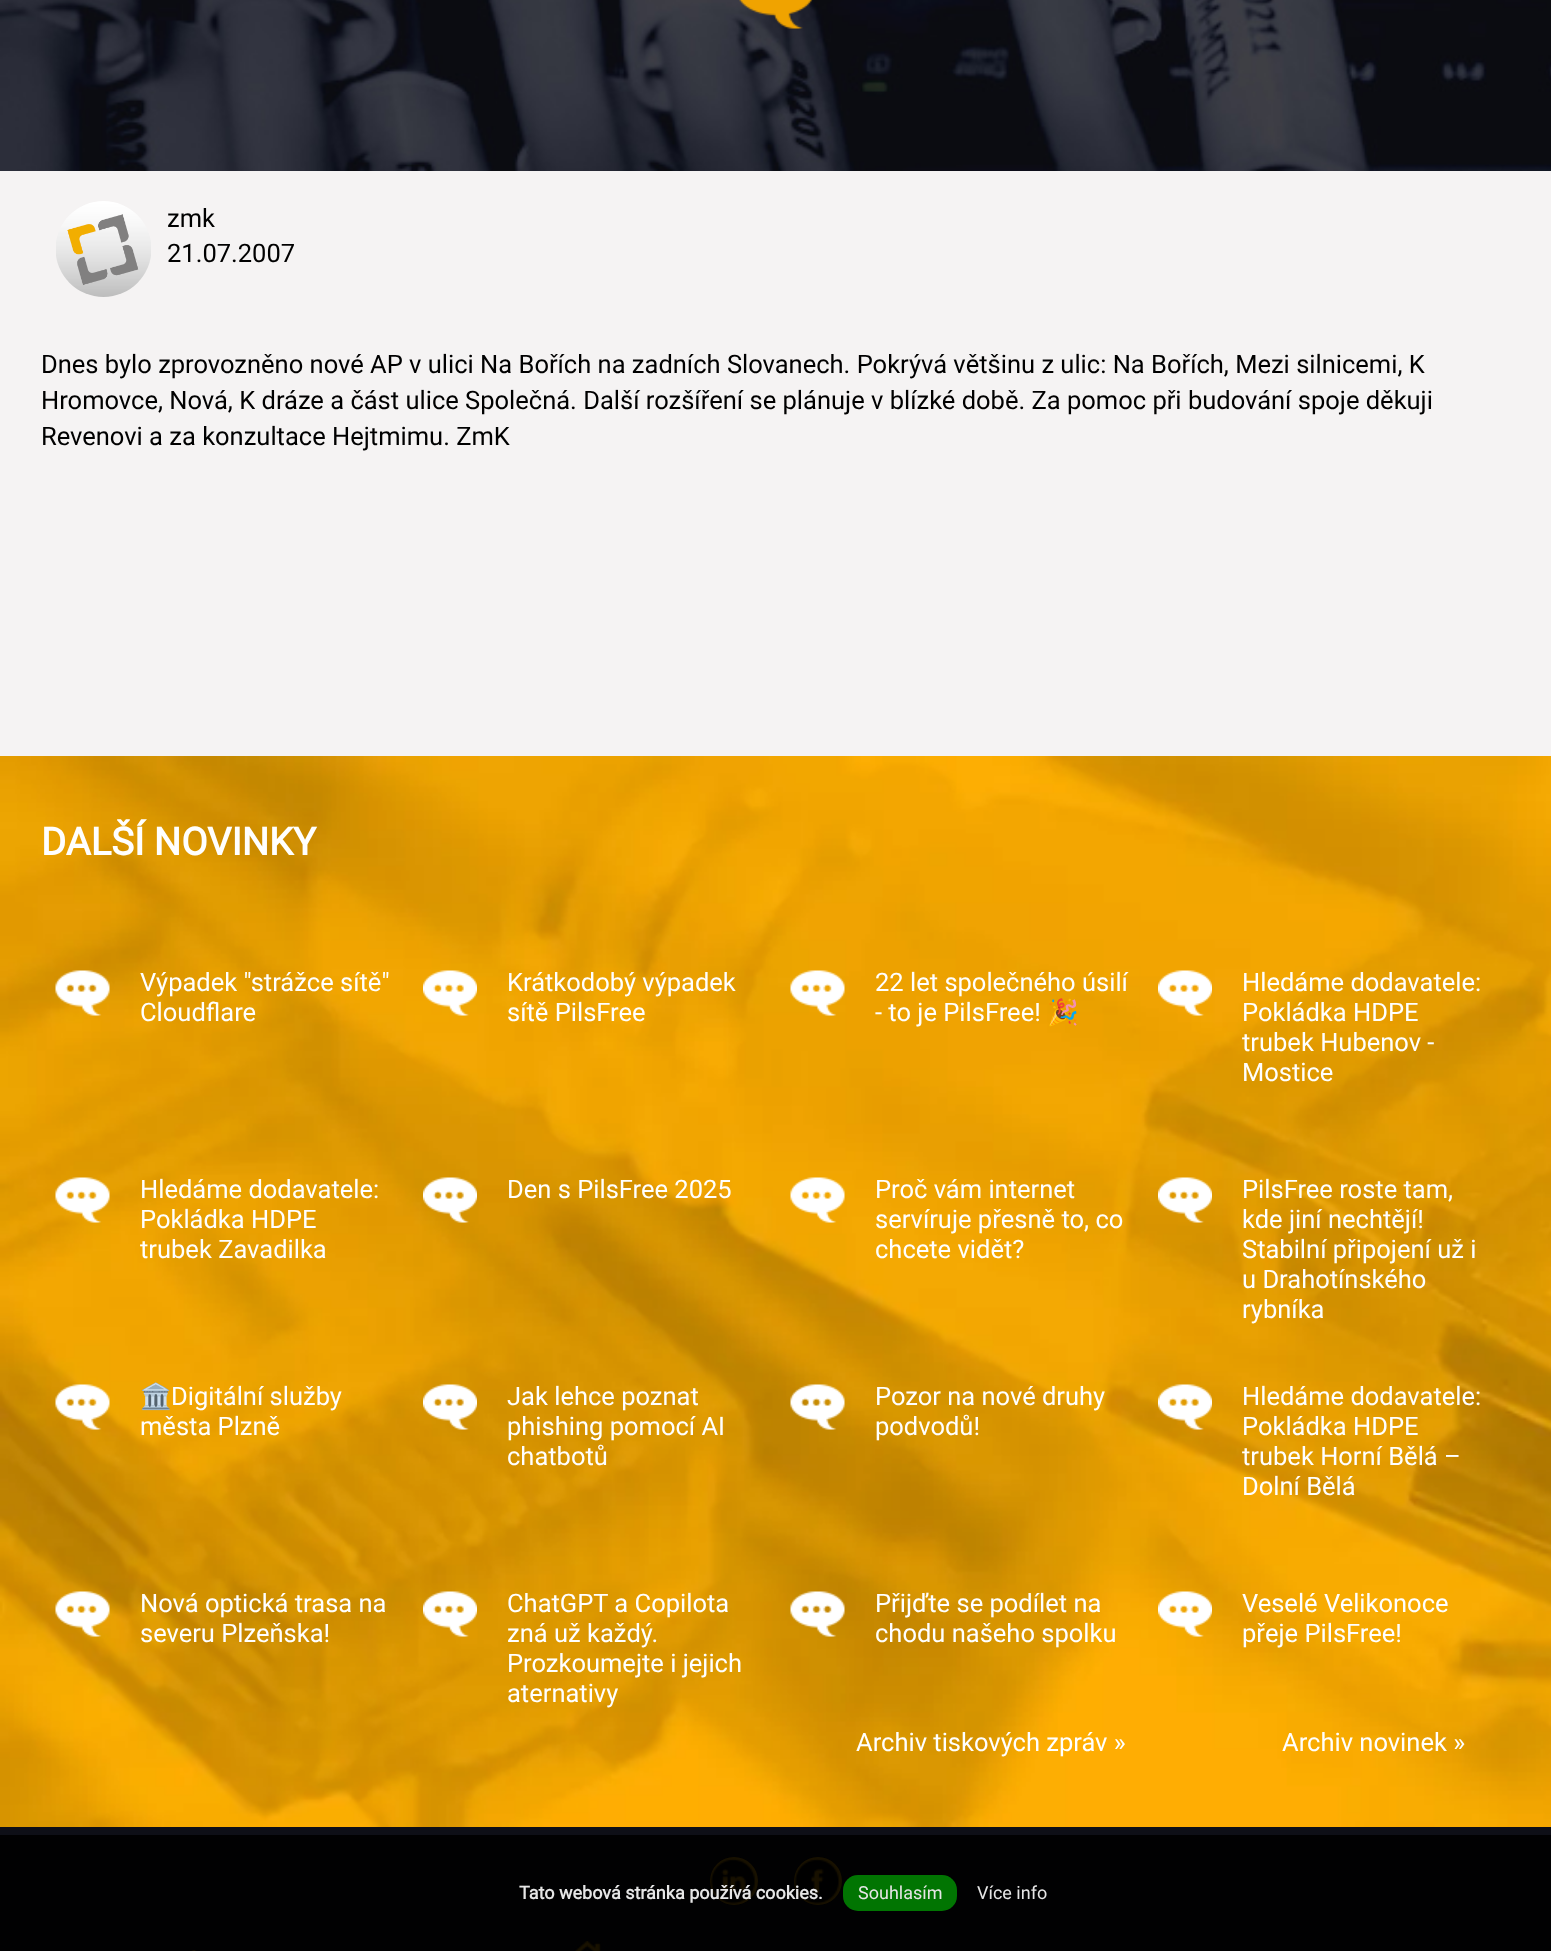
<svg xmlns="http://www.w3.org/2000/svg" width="1551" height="1951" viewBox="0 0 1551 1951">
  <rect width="100%" height="100%" fill="#ffffff"/>
  <image x="0" y="0" width="1551" height="171" href="img1.png"/>
  <image x="739" y="0" width="74" height="29" href="img2.png"/>
  <rect x="0" y="171" width="1551" height="585" fill="#f5f3f3"/>
  <image x="56" y="201" width="95" height="96" href="img3.png"/>
  <text x="167" y="227" font-family="Roboto" font-size="25.5" fill="#000000">zmk</text>
  <text x="167" y="262" font-family="Roboto" font-size="25.5" fill="#000000">21.07.2007</text>
  <text x="41" y="373" font-family="Roboto" font-size="25.5" fill="#000000">Dnes bylo zprovozněno nové AP v ulici Na Bořích na zadních Slovanech. Pokrývá většinu z ulic: Na Bořích, Mezi silnicemi, K</text>
  <text x="41" y="409" font-family="Roboto" font-size="25.5" fill="#000000">Hromovce, Nová, K dráze a část ulice Společná. Další rozšíření se plánuje v blízké době. Za pomoc při budování spoje děkuji</text>
  <text x="41" y="445" font-family="Roboto" font-size="25.5" fill="#000000">Revenovi a za konzultace Hejtmimu. ZmK</text>
  <image x="0" y="756" width="1551" height="1071" href="img4.png"/>
  <text x="41" y="855" font-family="Roboto" font-size="38.25" font-weight="bold" fill="#ffffff">DALŠÍ NOVINKY</text>
  <image x="55" y="970" width="55" height="46" href="img5.png"/>
  <text x="140" y="991" font-family="Roboto" font-size="25.5" fill="#ffffff">Výpadek "strážce sítě"</text>
  <text x="140" y="1021" font-family="Roboto" font-size="25.5" fill="#ffffff">Cloudflare</text>
  <image x="423" y="970" width="54" height="46" href="img6.png"/>
  <text x="507" y="991" font-family="Roboto" font-size="25.5" fill="#ffffff">Krátkodobý výpadek</text>
  <text x="507" y="1021" font-family="Roboto" font-size="25.5" fill="#ffffff">sítě PilsFree</text>
  <image x="790" y="970" width="55" height="46" href="img7.png"/>
  <text x="875" y="991" font-family="Roboto" font-size="25.5" fill="#ffffff">22 let společného úsilí</text>
  <text x="875" y="1021" font-family="Roboto" font-size="25.5" fill="#ffffff">- to je PilsFree!</text>
  <text x="1047" y="1021" font-family="Noto Color Emoji" font-size="25.5" fill="#ffffff">🎉</text>
  <image x="1158" y="970" width="54" height="46" href="img8.png"/>
  <text x="1242" y="991" font-family="Roboto" font-size="25.5" fill="#ffffff">Hledáme dodavatele:</text>
  <text x="1242" y="1021" font-family="Roboto" font-size="25.5" fill="#ffffff">Pokládka HDPE</text>
  <text x="1242" y="1051" font-family="Roboto" font-size="25.5" fill="#ffffff">trubek Hubenov -</text>
  <text x="1242" y="1081" font-family="Roboto" font-size="25.5" fill="#ffffff">Mostice</text>
  <image x="55" y="1177" width="55" height="46" href="img9.png"/>
  <text x="140" y="1198" font-family="Roboto" font-size="25.5" fill="#ffffff">Hledáme dodavatele:</text>
  <text x="140" y="1228" font-family="Roboto" font-size="25.5" fill="#ffffff">Pokládka HDPE</text>
  <text x="140" y="1258" font-family="Roboto" font-size="25.5" fill="#ffffff">trubek Zavadilka</text>
  <image x="423" y="1177" width="54" height="46" href="img10.png"/>
  <text x="507" y="1198" font-family="Roboto" font-size="25.5" fill="#ffffff">Den s PilsFree 2025</text>
  <image x="790" y="1177" width="55" height="46" href="img11.png"/>
  <text x="875" y="1198" font-family="Roboto" font-size="25.5" fill="#ffffff">Proč vám internet</text>
  <text x="875" y="1228" font-family="Roboto" font-size="25.5" fill="#ffffff">servíruje přesně to, co</text>
  <text x="875" y="1258" font-family="Roboto" font-size="25.5" fill="#ffffff">chcete vidět?</text>
  <image x="1158" y="1177" width="54" height="46" href="img12.png"/>
  <text x="1242" y="1198" font-family="Roboto" font-size="25.5" fill="#ffffff">PilsFree roste tam,</text>
  <text x="1242" y="1228" font-family="Roboto" font-size="25.5" fill="#ffffff">kde jiní nechtějí!</text>
  <text x="1242" y="1258" font-family="Roboto" font-size="25.5" fill="#ffffff">Stabilní připojení už i</text>
  <text x="1242" y="1288" font-family="Roboto" font-size="25.5" fill="#ffffff">u Drahotínského</text>
  <text x="1242" y="1318" font-family="Roboto" font-size="25.5" fill="#ffffff">rybníka</text>
  <image x="55" y="1384" width="55" height="46" href="img13.png"/>
  <text x="140" y="1405" font-family="Noto Color Emoji" font-size="25.5" fill="#ffffff">🏛️</text>
  <text x="171" y="1405" font-family="Roboto" font-size="25.5" fill="#ffffff">Digitální služby</text>
  <text x="140" y="1435" font-family="Roboto" font-size="25.5" fill="#ffffff">města Plzně</text>
  <image x="423" y="1384" width="54" height="46" href="img14.png"/>
  <text x="507" y="1405" font-family="Roboto" font-size="25.5" fill="#ffffff">Jak lehce poznat</text>
  <text x="507" y="1435" font-family="Roboto" font-size="25.5" fill="#ffffff">phishing pomocí AI</text>
  <text x="507" y="1465" font-family="Roboto" font-size="25.5" fill="#ffffff">chatbotů</text>
  <image x="790" y="1384" width="55" height="46" href="img15.png"/>
  <text x="875" y="1405" font-family="Roboto" font-size="25.5" fill="#ffffff">Pozor na nové druhy</text>
  <text x="875" y="1435" font-family="Roboto" font-size="25.5" fill="#ffffff">podvodů!</text>
  <image x="1158" y="1384" width="54" height="46" href="img16.png"/>
  <text x="1242" y="1405" font-family="Roboto" font-size="25.5" fill="#ffffff">Hledáme dodavatele:</text>
  <text x="1242" y="1435" font-family="Roboto" font-size="25.5" fill="#ffffff">Pokládka HDPE</text>
  <text x="1242" y="1465" font-family="Roboto" font-size="25.5" fill="#ffffff">trubek Horní Bělá –</text>
  <text x="1242" y="1495" font-family="Roboto" font-size="25.5" fill="#ffffff">Dolní Bělá</text>
  <image x="55" y="1591" width="55" height="46" href="img17.png"/>
  <text x="140" y="1612" font-family="Roboto" font-size="25.5" fill="#ffffff">Nová optická trasa na</text>
  <text x="140" y="1642" font-family="Roboto" font-size="25.5" fill="#ffffff">severu Plzeňska!</text>
  <image x="423" y="1591" width="54" height="46" href="img18.png"/>
  <text x="507" y="1612" font-family="Roboto" font-size="25.5" fill="#ffffff">ChatGPT a Copilota</text>
  <text x="507" y="1642" font-family="Roboto" font-size="25.5" fill="#ffffff">zná už každý.</text>
  <text x="507" y="1672" font-family="Roboto" font-size="25.5" fill="#ffffff">Prozkoumejte i jejich</text>
  <text x="507" y="1702" font-family="Roboto" font-size="25.5" fill="#ffffff">aternativy</text>
  <image x="790" y="1591" width="55" height="46" href="img19.png"/>
  <text x="875" y="1612" font-family="Roboto" font-size="25.5" fill="#ffffff">Přijďte se podílet na</text>
  <text x="875" y="1642" font-family="Roboto" font-size="25.5" fill="#ffffff">chodu našeho spolku</text>
  <image x="1158" y="1591" width="54" height="46" href="img20.png"/>
  <text x="1242" y="1612" font-family="Roboto" font-size="25.5" fill="#ffffff">Veselé Velikonoce</text>
  <text x="1242" y="1642" font-family="Roboto" font-size="25.5" fill="#ffffff">přeje PilsFree!</text>
  <text x="856" y="1751" font-family="Roboto" font-size="25.5" fill="#ffffff">Archiv tiskových zpráv »</text>
  <text x="1282" y="1751" font-family="Roboto" font-size="25.5" fill="#ffffff">Archiv novinek »</text>
  <rect x="0" y="1827" width="1551" height="8" fill="#0e0f17"/>
  <rect x="0" y="1835" width="1551" height="116" fill="#010102"/>
  <circle cx="734" cy="1881" r="24" fill="#181100"/>
  <circle cx="818" cy="1881" r="24" fill="#181100"/>
  <image x="710" y="1858" width="46" height="46" href="img21.png"/>
  <image x="794" y="1858" width="46" height="46" href="img22.png"/>
  <image x="188" y="1950" width="9" height="1" href="img23.png"/>
  <image x="574" y="1941" width="27" height="10" href="img24.png"/>
  <text x="519" y="1899" font-family="Roboto" font-size="18" font-weight="bold" fill="#e6e6e6">Tato webová stránka používá cookies.</text>
  <rect x="843" y="1875" width="114" height="36" rx="15" fill="#017502"/>
  <text x="858" y="1899" font-family="Roboto" font-size="18" fill="#e6e6e6">Souhlasím</text>
  <text x="977" y="1899" font-family="Roboto" font-size="18" fill="#e6e6e6">Více info</text>
</svg>
